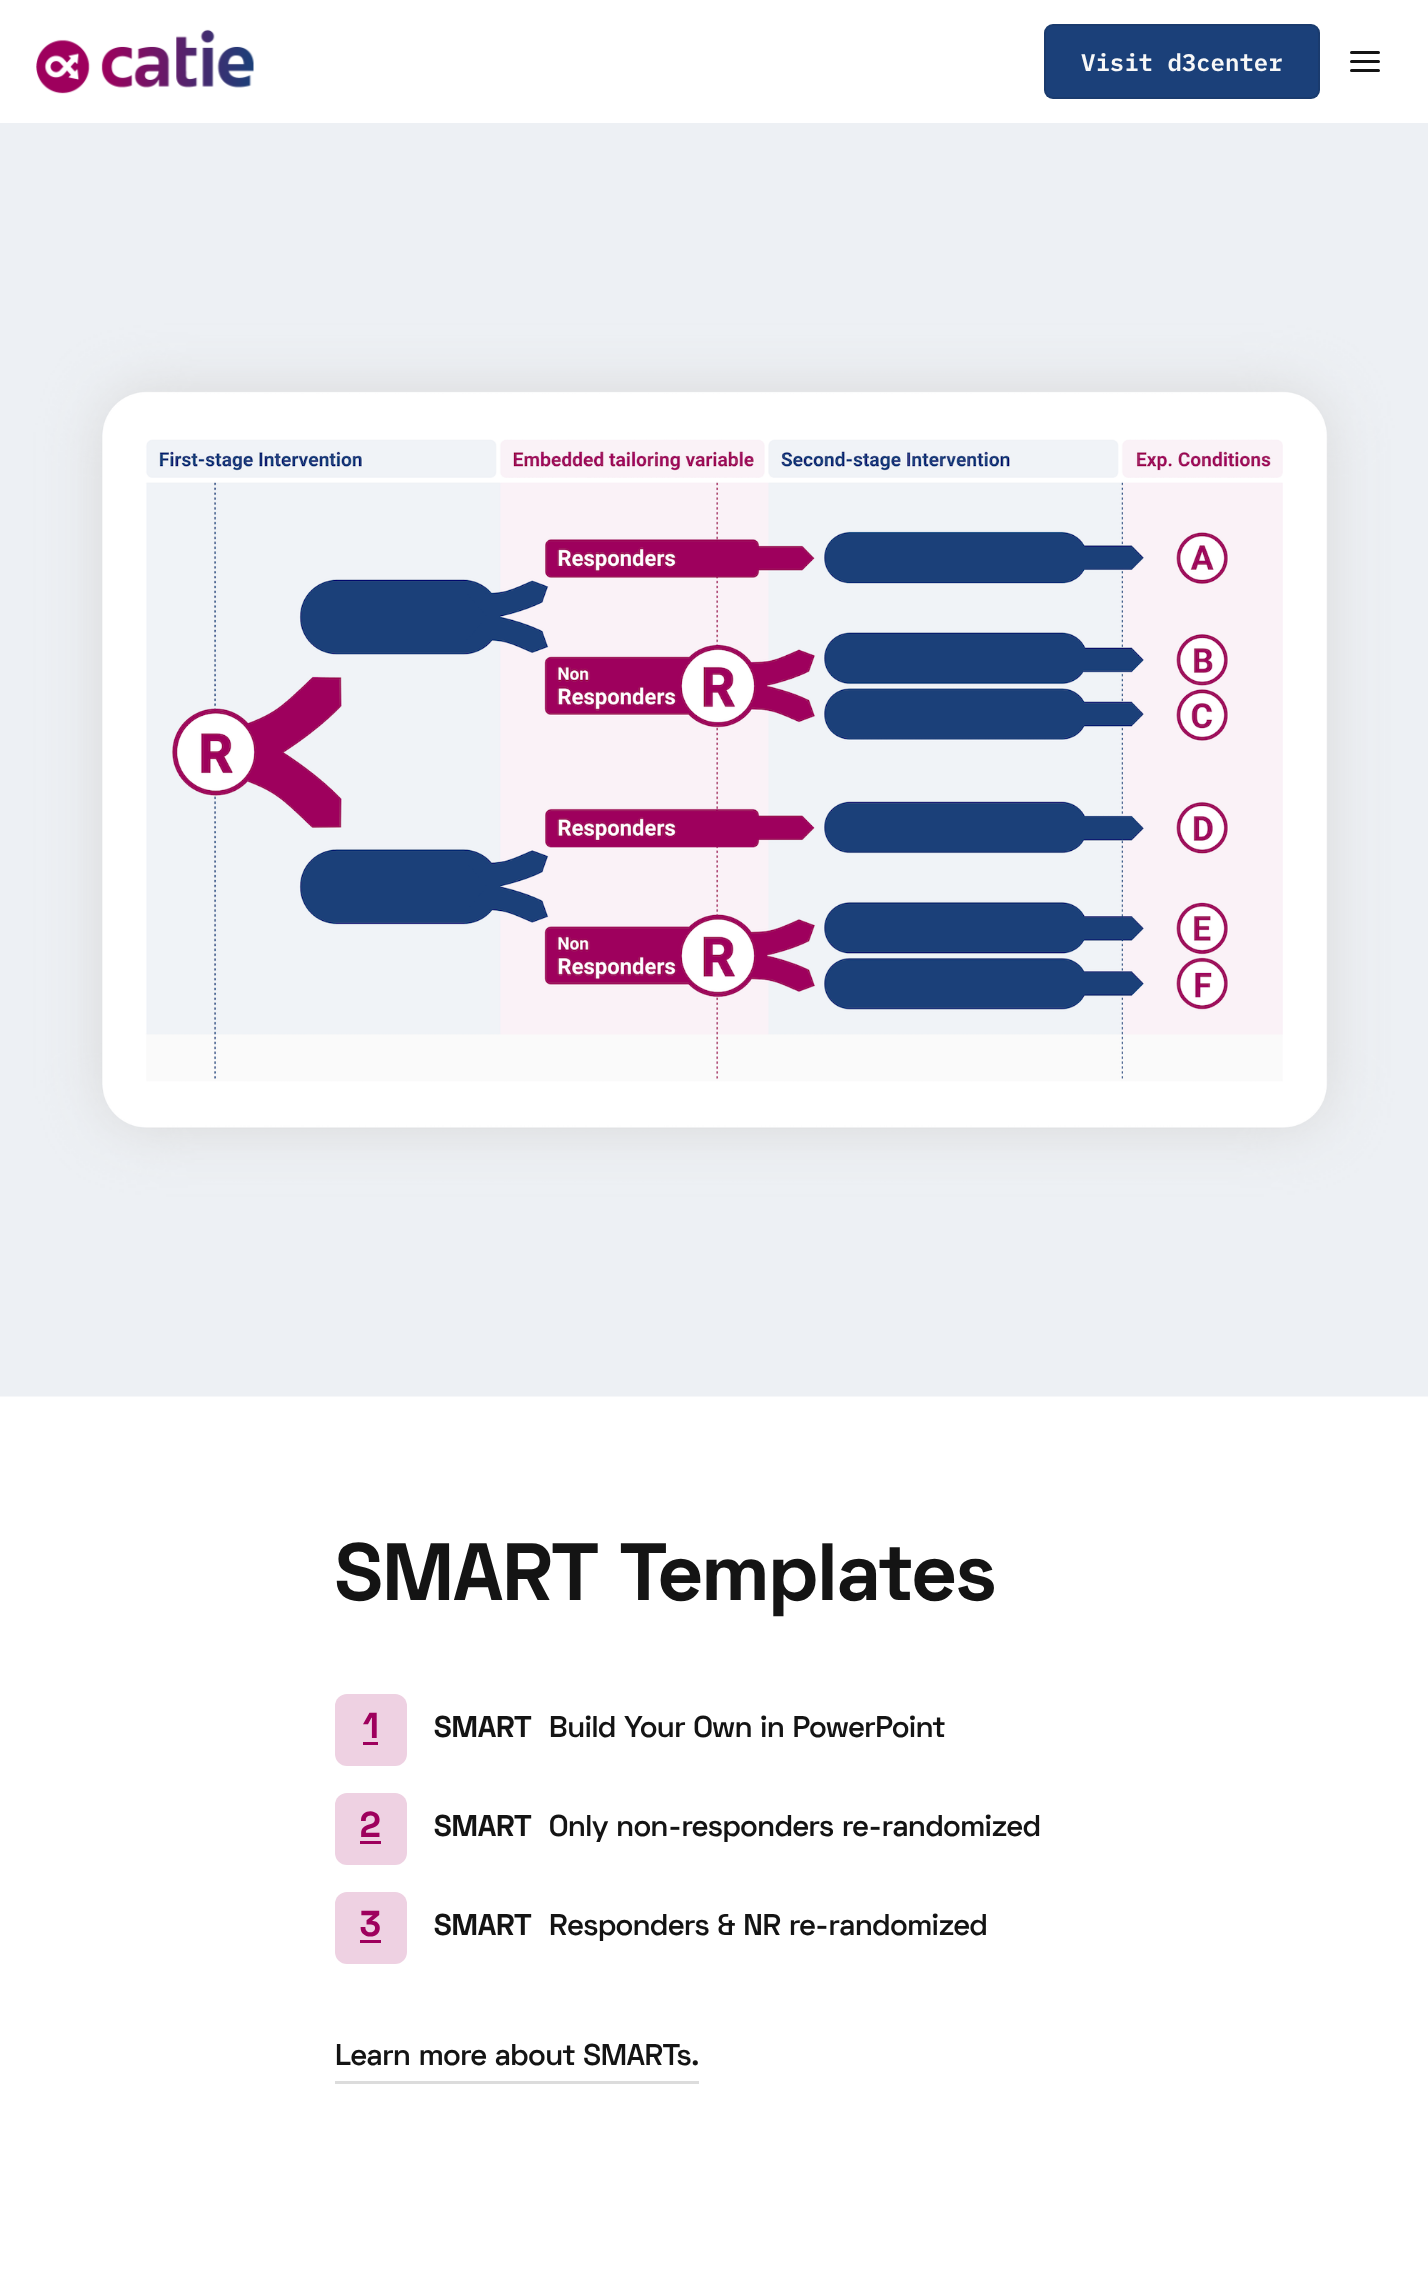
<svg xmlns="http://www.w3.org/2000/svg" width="1428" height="2290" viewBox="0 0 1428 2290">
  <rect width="100%" height="100%" fill="#ffffff"/>
  <image x="36" y="29" width="218" height="65" href="img1.png"/>
  <rect x="1044" y="24" width="276" height="75" rx="9" fill="#1b4079"/>
  <rect x="1045" y="25" width="274" height="73" rx="8" fill="none" stroke="#141414" stroke-opacity="0.1" stroke-width="2"/>
  <text x="1081" y="71" font-family="IBM Plex Mono" font-size="24" font-weight="600" fill="#f8f8f8">Visit d3center</text>
  <path d="M1351.5 61.5H1378.5M1351.5 52.5H1378.5M1351.5 70.5H1378.5" fill="none" stroke="#141414" stroke-width="3" stroke-linecap="round" stroke-linejoin="round"/>
  <image x="0" y="123" width="1428" height="1274" href="img2.png"/>
  <text x="335" y="1600" font-family="Space Grotesk" font-size="81" font-weight="bold" fill="#141414">SMART Templates</text>
  <rect x="335" y="1694" width="72" height="72" rx="12" fill="#eed1e2"/>
  <text x="363" y="1738" font-family="Space Grotesk" font-size="36" font-weight="bold" fill="#9e005d">1</text>
  <rect x="363" y="1742" width="15" height="3" fill="#9e005d"/>
  <text x="434" y="1737" font-family="Space Grotesk" font-size="30" font-weight="bold" fill="#141414">SMART</text>
  <text x="549" y="1737" font-family="Space Grotesk" font-size="30" font-weight="600" letter-spacing="-0.3" fill="#141414">Build Your Own in PowerPoint</text>
  <rect x="335" y="1793" width="72" height="72" rx="12" fill="#eed1e2"/>
  <text x="360" y="1837" font-family="Space Grotesk" font-size="36" font-weight="bold" fill="#9e005d">2</text>
  <rect x="360" y="1841" width="21" height="3" fill="#9e005d"/>
  <text x="434" y="1836" font-family="Space Grotesk" font-size="30" font-weight="bold" fill="#141414">SMART</text>
  <text x="549" y="1836" font-family="Space Grotesk" font-size="30" font-weight="600" letter-spacing="-0.3" fill="#141414">Only non-responders re-randomized</text>
  <rect x="335" y="1892" width="72" height="72" rx="12" fill="#eed1e2"/>
  <text x="360" y="1936" font-family="Space Grotesk" font-size="36" font-weight="bold" fill="#9e005d">3</text>
  <rect x="360" y="1940" width="21" height="3" fill="#9e005d"/>
  <text x="434" y="1935" font-family="Space Grotesk" font-size="30" font-weight="bold" fill="#141414">SMART</text>
  <text x="549" y="1935" font-family="Space Grotesk" font-size="30" font-weight="600" letter-spacing="-0.3" fill="#141414">Responders &amp; NR re-randomized</text>
  <text x="335" y="2065" font-family="Space Grotesk" font-size="30" font-weight="600" letter-spacing="-0.3" fill="#141414">Learn more about SMARTs.</text>
  <rect x="335" y="2081" width="364" height="3" fill="#dcdcdc"/>
</svg>
